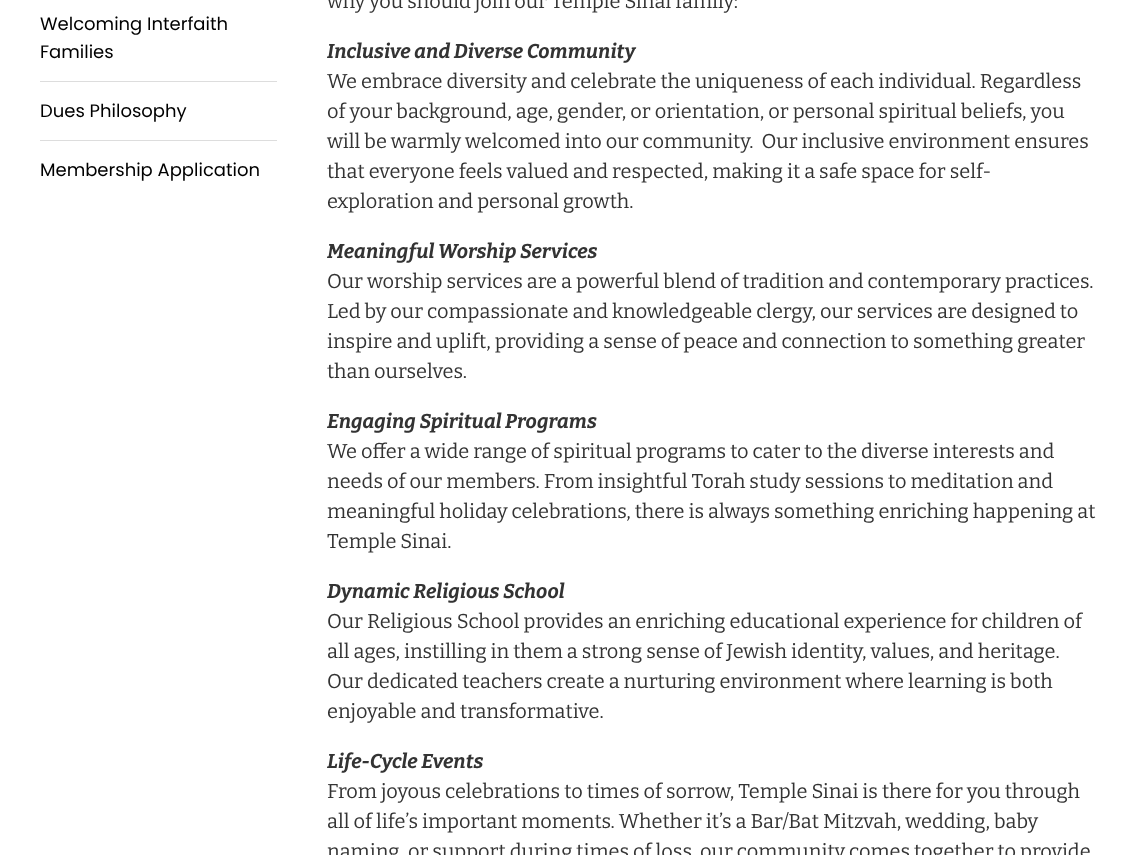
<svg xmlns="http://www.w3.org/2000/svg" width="1148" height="855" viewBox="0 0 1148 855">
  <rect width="100%" height="100%" fill="#ffffff"/>
  <text x="40" y="30" font-family="Poppins" font-size="18" fill="#000000">Welcoming Interfaith</text>
  <text x="40" y="58" font-family="Poppins" font-size="18" fill="#000000">Families</text>
  <rect x="40" y="81" width="237" height="1" fill="#dddddd"/>
  <text x="40" y="117" font-family="Poppins" font-size="18" fill="#000000">Dues Philosophy</text>
  <rect x="40" y="140" width="237" height="1" fill="#dddddd"/>
  <text x="40" y="176" font-family="Poppins" font-size="18" fill="#000000">Membership Application</text>
  <text x="327" y="8" font-family="Bitter" font-size="20" fill="#333333">why you should join our Temple Sinai family:</text>
  <text x="327" y="58" font-family="Bitter" font-size="20" font-weight="bold" font-style="italic" fill="#333333">Inclusive and Diverse Community</text>
  <text x="327" y="88" font-family="Bitter" font-size="20" fill="#333333">We embrace diversity and celebrate the uniqueness of each individual. Regardless</text>
  <text x="327" y="118" font-family="Bitter" font-size="20" fill="#333333">of your background, age, gender, or orientation, or personal spiritual beliefs, you</text>
  <text x="327" y="148" font-family="Bitter" font-size="20" fill="#333333" xml:space="preserve">will be warmly welcomed into our community.  Our inclusive environment ensures</text>
  <text x="327" y="178" font-family="Bitter" font-size="20" fill="#333333">that everyone feels valued and respected, making it a safe space for self-</text>
  <text x="327" y="208" font-family="Bitter" font-size="20" fill="#333333">exploration and personal growth.</text>
  <text x="327" y="258" font-family="Bitter" font-size="20" font-weight="bold" font-style="italic" fill="#333333">Meaningful Worship Services</text>
  <text x="327" y="288" font-family="Bitter" font-size="20" fill="#333333">Our worship services are a powerful blend of tradition and contemporary practices.</text>
  <text x="327" y="318" font-family="Bitter" font-size="20" fill="#333333">Led by our compassionate and knowledgeable clergy, our services are designed to</text>
  <text x="327" y="348" font-family="Bitter" font-size="20" fill="#333333">inspire and uplift, providing a sense of peace and connection to something greater</text>
  <text x="327" y="378" font-family="Bitter" font-size="20" fill="#333333">than ourselves.</text>
  <text x="327" y="428" font-family="Bitter" font-size="20" font-weight="bold" font-style="italic" fill="#333333">Engaging Spiritual Programs</text>
  <text x="327" y="458" font-family="Bitter" font-size="20" fill="#333333">We offer a wide range of spiritual programs to cater to the diverse interests and</text>
  <text x="327" y="488" font-family="Bitter" font-size="20" fill="#333333">needs of our members. From insightful Torah study sessions to meditation and</text>
  <text x="327" y="518" font-family="Bitter" font-size="20" fill="#333333">meaningful holiday celebrations, there is always something enriching happening at</text>
  <text x="327" y="548" font-family="Bitter" font-size="20" fill="#333333">Temple Sinai.</text>
  <text x="327" y="598" font-family="Bitter" font-size="20" font-weight="bold" font-style="italic" fill="#333333">Dynamic Religious School</text>
  <text x="327" y="628" font-family="Bitter" font-size="20" fill="#333333">Our Religious School provides an enriching educational experience for children of</text>
  <text x="327" y="658" font-family="Bitter" font-size="20" fill="#333333">all ages, instilling in them a strong sense of Jewish identity, values, and heritage.</text>
  <text x="327" y="688" font-family="Bitter" font-size="20" fill="#333333">Our dedicated teachers create a nurturing environment where learning is both</text>
  <text x="327" y="718" font-family="Bitter" font-size="20" fill="#333333">enjoyable and transformative.</text>
  <text x="327" y="768" font-family="Bitter" font-size="20" font-weight="bold" font-style="italic" fill="#333333">Life-Cycle Events</text>
  <text x="327" y="798" font-family="Bitter" font-size="20" fill="#333333">From joyous celebrations to times of sorrow, Temple Sinai is there for you through</text>
  <text x="327" y="828" font-family="Bitter" font-size="20" fill="#333333">all of life’s important moments. Whether it’s a Bar/Bat Mitzvah, wedding, baby</text>
  <text x="327" y="858" font-family="Bitter" font-size="20" fill="#333333">naming, or support during times of loss, our community comes together to provide</text>
</svg>
